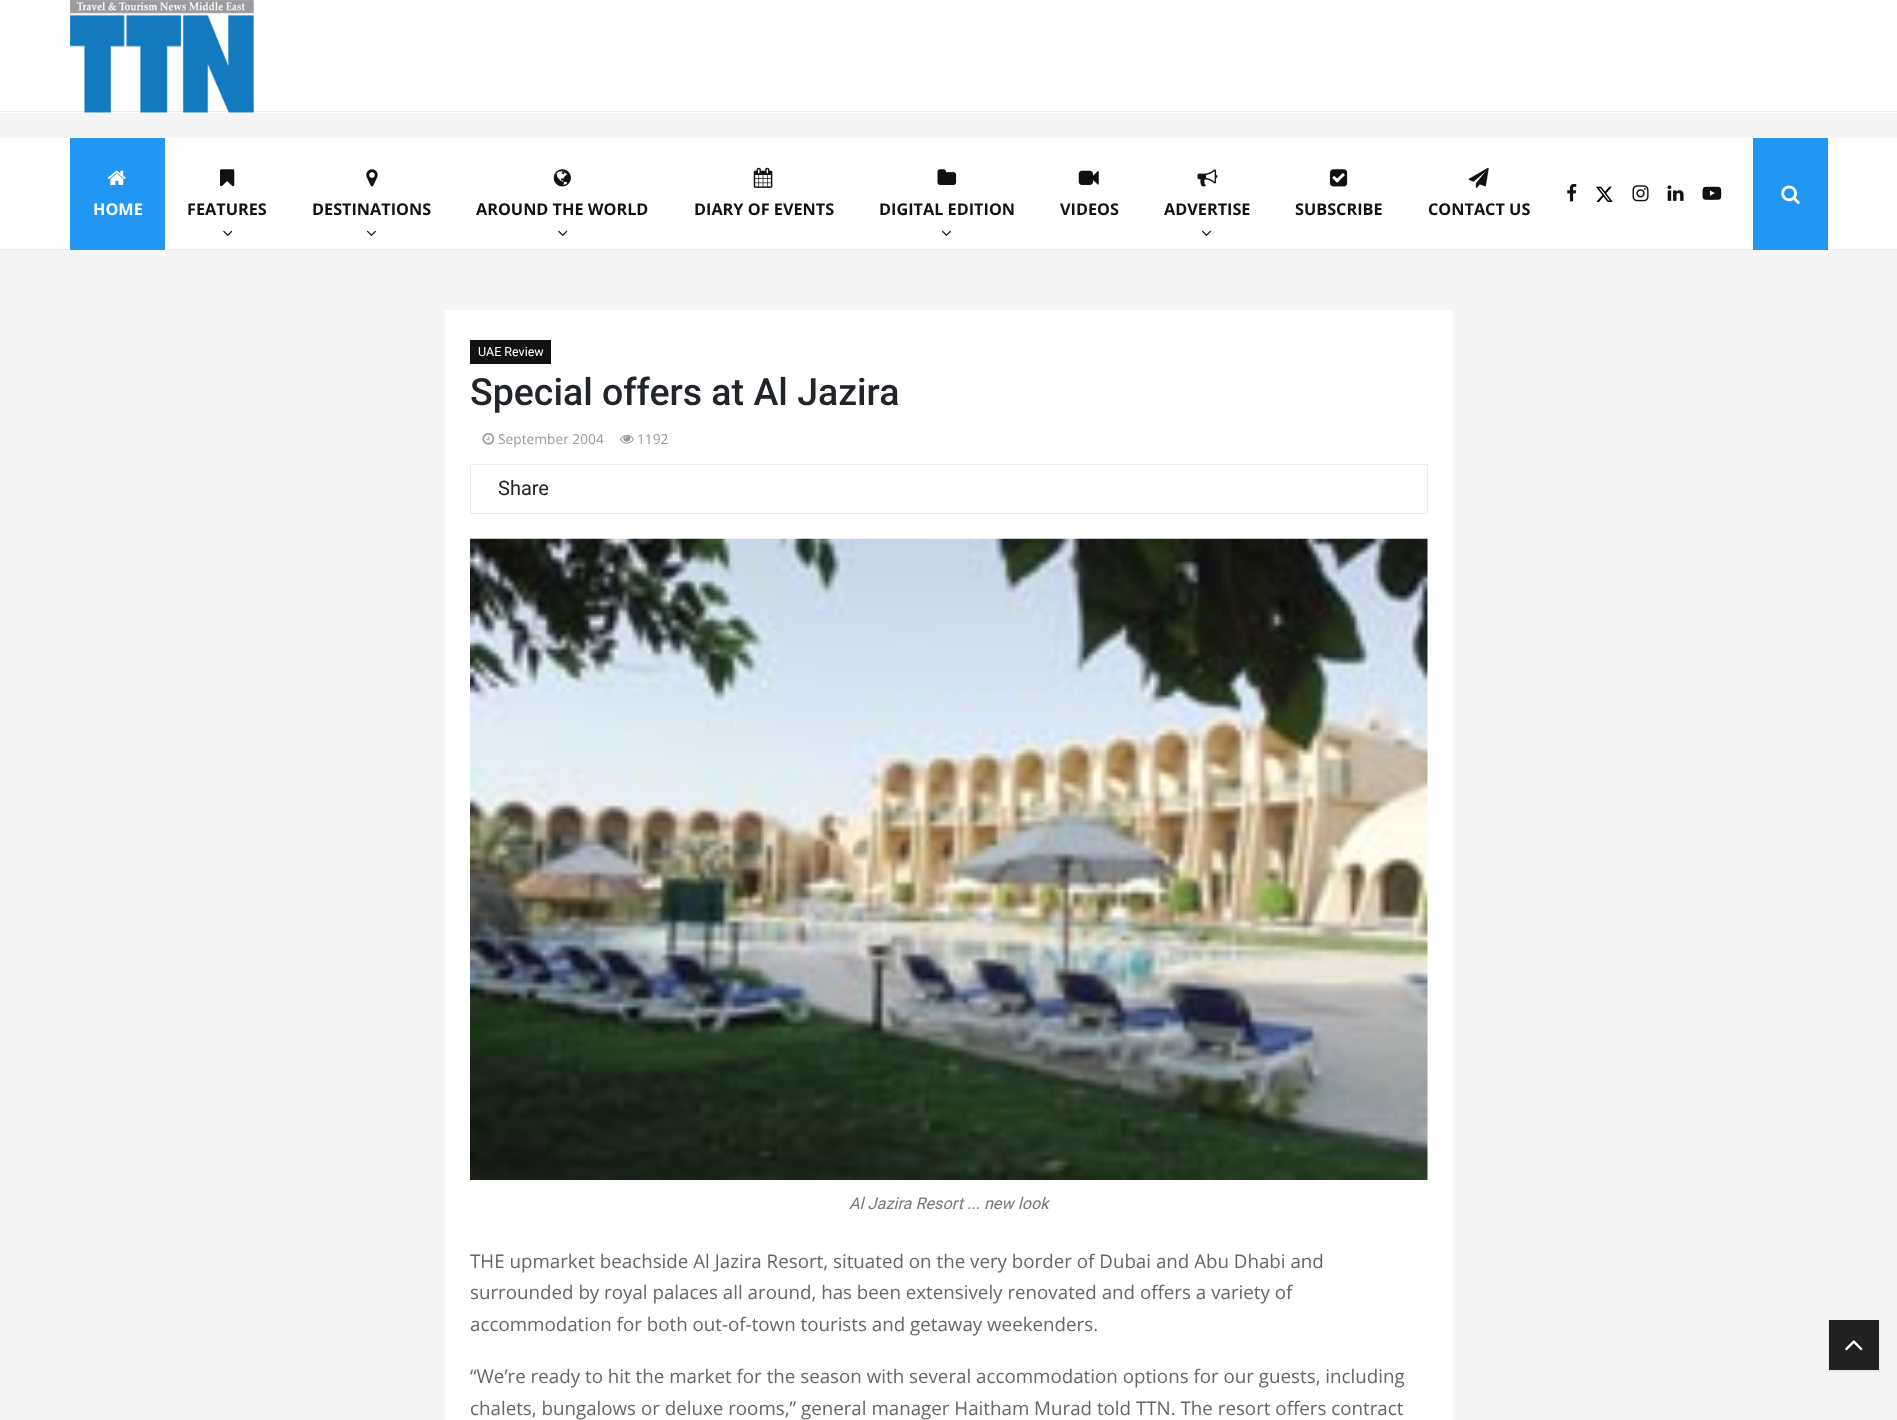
<svg xmlns="http://www.w3.org/2000/svg" width="1897" height="1420" viewBox="0 0 1897 1420">
  <defs>
    <filter id="blur1" x="-50%" y="-200%" width="200%" height="500%"><feGaussianBlur stdDeviation="1"/></filter>
  </defs>
  <rect width="100%" height="100%" fill="#f5f5f5"/>
  <rect x="0" y="0" width="1897" height="113" fill="#ffffff"/>
  <rect x="0" y="111" width="1897" height="1" fill="#ececec"/>
  <image x="70" y="0" width="184" height="113" href="img1.png"/>
  <rect x="0" y="138" width="1897" height="111" fill="#ffffff"/>
  <rect x="0" y="249" width="1897" height="1" fill="#ececec"/>
  <rect x="70" y="138" width="95" height="112" fill="#2196f3"/>
  <image x="107" y="170" width="19" height="15" href="img2.png"/>
  <text x="93" y="215" font-family="Open Sans" font-size="16.25" font-weight="bold" fill="#ffffff">HOME</text>
  <image x="220" y="169" width="15" height="18" href="img3.png"/>
  <text x="187" y="215" font-family="Open Sans" font-size="16.25" font-weight="bold" fill="#111111">FEATURES</text>
  <image x="223" y="230" width="10" height="6" href="img4.png"/>
  <image x="366" y="169" width="12" height="18" href="img5.png"/>
  <text x="312" y="215" font-family="Open Sans" font-size="16.25" font-weight="bold" fill="#111111">DESTINATIONS</text>
  <image x="367" y="230" width="9" height="6" href="img6.png"/>
  <image x="553" y="169" width="18" height="18" href="img7.png"/>
  <text x="476" y="215" font-family="Open Sans" font-size="16.25" font-weight="bold" fill="#111111">AROUND THE WORLD</text>
  <image x="558" y="230" width="10" height="6" href="img4.png"/>
  <image x="753" y="167" width="20" height="21" href="img8.png"/>
  <text x="694" y="215" font-family="Open Sans" font-size="16.25" font-weight="bold" fill="#111111">DIARY OF EVENTS</text>
  <image x="937" y="169" width="20" height="16" href="img9.png"/>
  <text x="879" y="215" font-family="Open Sans" font-size="16.25" font-weight="bold" fill="#111111">DIGITAL EDITION</text>
  <image x="942" y="230" width="9" height="6" href="img6.png"/>
  <image x="1078" y="170" width="21" height="15" href="img10.png"/>
  <text x="1060" y="215" font-family="Open Sans" font-size="16.25" font-weight="bold" fill="#111111">VIDEOS</text>
  <image x="1197" y="169" width="21" height="18" href="img11.png"/>
  <text x="1164" y="215" font-family="Open Sans" font-size="16.25" font-weight="bold" fill="#111111">ADVERTISE</text>
  <image x="1202" y="230" width="9" height="6" href="img6.png"/>
  <image x="1330" y="169" width="18" height="18" href="img12.png"/>
  <text x="1295" y="215" font-family="Open Sans" font-size="16.25" font-weight="bold" fill="#111111">SUBSCRIBE</text>
  <image x="1468" y="167" width="21" height="21" href="img13.png"/>
  <text x="1428" y="215" font-family="Open Sans" font-size="16.25" font-weight="bold" fill="#111111">CONTACT US</text>
  <image x="1567" y="183" width="10" height="19" href="img14.png"/>
  <image x="1596" y="186" width="17" height="16" href="img15.png"/>
  <image x="1632" y="185" width="17" height="17" href="img16.png"/>
  <image x="1667" y="185" width="17" height="16" href="img17.png"/>
  <image x="1702" y="186" width="20" height="14" href="img18.png"/>
  <rect x="1753" y="138" width="75" height="112" fill="#2196f3"/>
  <image x="1781" y="185" width="19" height="20" href="img19.png"/>
  <rect x="445" y="310" width="1008" height="1110" fill="#ffffff"/>
  <rect x="470" y="340" width="81" height="24" fill="#111111"/>
  <text x="478" y="356" font-family="Roboto" font-size="12.5" fill="#ffffff">UAE Review</text>
  <text x="470" y="405" font-family="Roboto" font-size="37.5" font-weight="500" fill="#212529">Special offers at Al Jazira</text>
  <image x="482" y="433" width="13" height="12" href="img20.png"/>
  <text x="498" y="444" font-family="Open Sans" font-size="13.75" fill="#999999">September 2004</text>
  <image x="620" y="435" width="14" height="9" href="img21.png"/>
  <text x="637" y="444" font-family="Open Sans" font-size="13.75" fill="#999999">1192</text>
  <rect x="470.5" y="464.5" width="957" height="49" fill="none" stroke="#ececec"/>
  <text x="498" y="495" font-family="Roboto" font-size="20" fill="#212529">Share</text>
  <image x="470" y="538" width="958" height="642" href="img22.png"/>
  <text x="849" y="1209" font-family="Roboto" font-size="16.25" font-style="italic" fill="#777777">Al Jazira Resort ... new look</text>
  <text x="470" y="1268" font-family="Open Sans" font-size="18.75" fill="#666666">THE upmarket beachside Al Jazira Resort, situated on the very border of Dubai and Abu Dhabi and</text>
  <text x="470" y="1299" font-family="Open Sans" font-size="18.75" fill="#666666">surrounded by royal palaces all around, has been extensively renovated and offers a variety of</text>
  <text x="470" y="1331" font-family="Open Sans" font-size="18.75" fill="#666666">accommodation for both out-of-town tourists and getaway weekenders.</text>
  <text x="470" y="1383" font-family="Open Sans" font-size="18.75" fill="#666666">“We’re ready to hit the market for the season with several accommodation options for our guests, including</text>
  <text x="470" y="1415" font-family="Open Sans" font-size="18.75" fill="#666666">chalets, bungalows or deluxe rooms,” general manager Haitham Murad told TTN. The resort offers contract</text>
  <rect x="1829" y="1321" width="50" height="50" fill="#000000" fill-opacity="0.1" filter="url(#blur1)"/>
  <rect x="1829" y="1320" width="50" height="50" fill="#212121"/>
  <image x="1845" y="1340" width="18" height="11" href="img23.png"/>
</svg>
